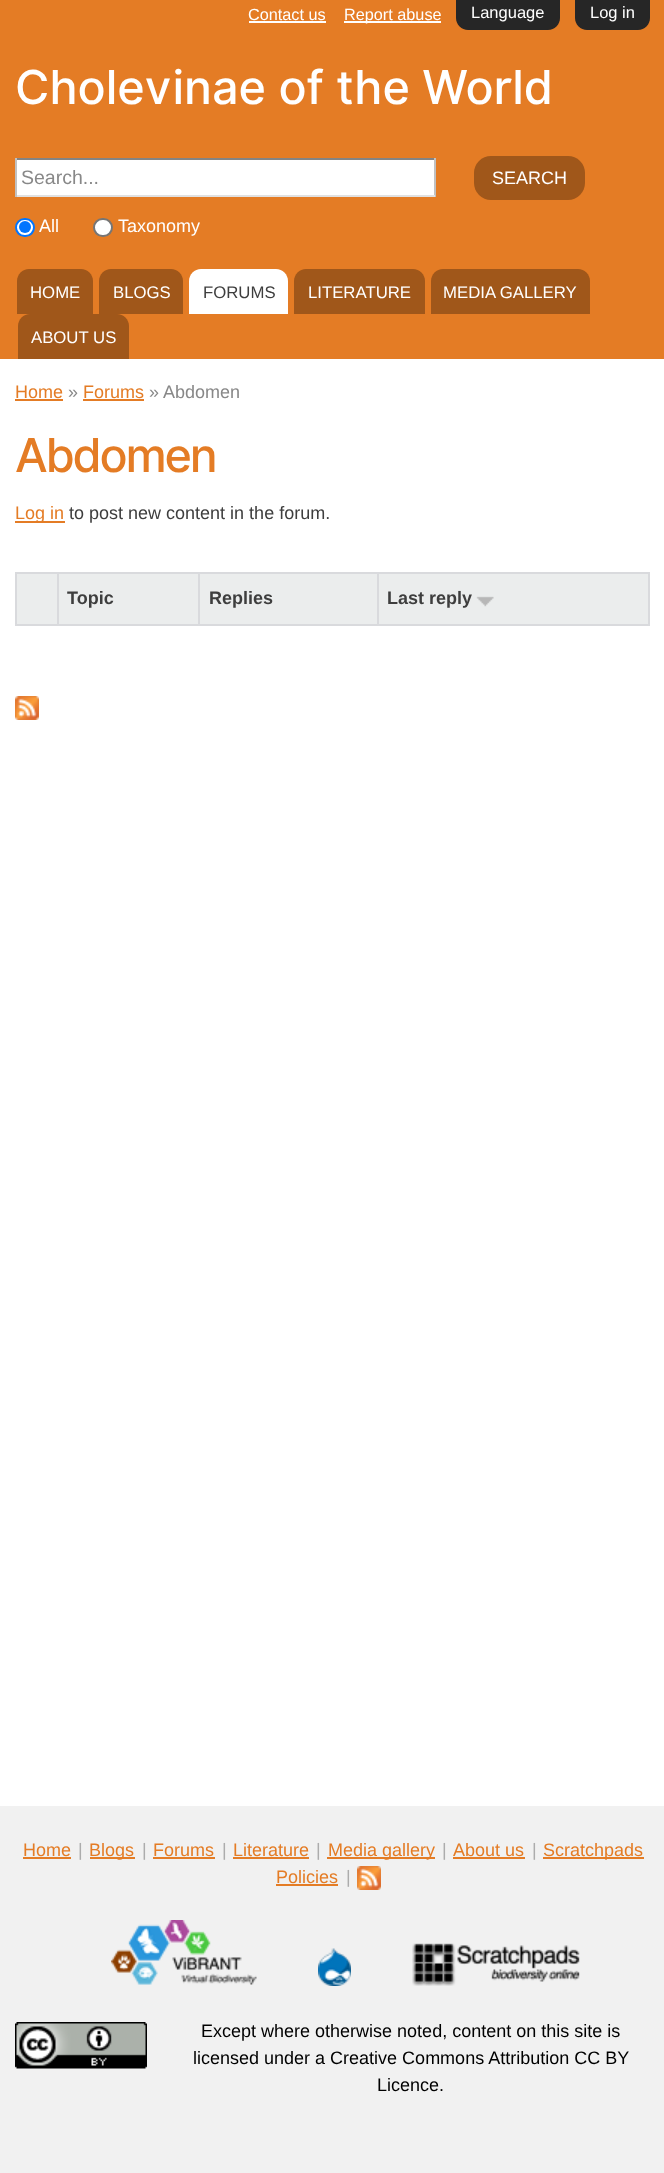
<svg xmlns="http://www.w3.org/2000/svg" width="664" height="2173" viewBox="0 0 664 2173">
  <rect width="100%" height="100%" fill="#ffffff"/>
  <rect x="0" y="0" width="664" height="359" fill="#e47c25"/>
  <path d="M456 0H560V18C560 24.5 554.5 30 548 30H468C461.5 30 456 24.5 456 18Z" fill="#262626"/>
  <text x="471" y="18" font-family="Liberation Sans" font-size="16.5" fill="#ffffff">Language</text>
  <path d="M575 0H650V18C650 24.5 644.5 30 638 30H587C580.5 30 575 24.5 575 18Z" fill="#262626"/>
  <text x="590" y="18" font-family="Liberation Sans" font-size="16.5" fill="#ffffff">Log in</text>
  <text x="248" y="20" font-family="Liberation Sans" font-size="16.25" fill="#ffffff">Contact us</text>
  <rect x="249" y="21" width="77" height="2" fill="#ffffff"/>
  <rect x="344" y="21" width="97" height="2" fill="#ffffff"/>
  <text x="344" y="20" font-family="Liberation Sans" font-size="16.25" fill="#ffffff">Report abuse</text>
  <text x="15" y="104" font-family="Inter" font-size="46.75" font-weight="500" fill="#ffffff">Cholevinae of the World</text>
  <rect x="17" y="160" width="417" height="35" fill="#ffffff"/>
  <rect x="15" y="158" width="420" height="2" fill="#848484"/>
  <rect x="434" y="158" width="2" height="39" fill="#c1c1c1"/>
  <rect x="15" y="195" width="420" height="2" fill="#e1e1e1"/>
  <rect x="15" y="158" width="2" height="39" fill="#c1c1c1"/>
  <text x="21" y="184" font-family="Liberation Sans" font-size="19.5" fill="#888888">Search...</text>
  <rect x="474" y="156" width="111" height="44" rx="17" fill="#a0571a"/>
  <text x="492" y="184" font-family="Liberation Sans" font-size="18" fill="#ffffff">SEARCH</text>
  <rect x="16" y="219" width="18" height="17" rx="8.5" fill="#ffffff" stroke="#0075ff" stroke-width="2"/>
  <circle cx="25" cy="227" r="6" fill="#0075ff"/>
  <text x="39" y="232" font-family="Liberation Sans" font-size="18" fill="#ffffff">All</text>
  <rect x="94" y="219" width="18" height="17" rx="8.5" fill="#ffffff" stroke="#767676" stroke-width="2"/>
  <text x="118" y="232" font-family="Liberation Sans" font-size="18" fill="#ffffff">Taxonomy</text>
  <path d="M29 269H81C87.5 269 93 274.5 93 281V314H17V281C17 274.5 22.5 269 29 269Z" fill="#a0571a"/>
  <text x="30" y="298" font-family="Liberation Sans" font-size="16.75" fill="#ffffff">HOME</text>
  <path d="M111 269H171C177.5 269 183 274.5 183 281V314H99V281C99 274.5 104.5 269 111 269Z" fill="#a0571a"/>
  <text x="113" y="298" font-family="Liberation Sans" font-size="16.75" fill="#ffffff">BLOGS</text>
  <path d="M201 269H276C282.5 269 288 274.5 288 281V314H189V281C189 274.5 194.5 269 201 269Z" fill="#ffffff"/>
  <text x="203" y="298" font-family="Liberation Sans" font-size="16.75" fill="#3e3e3e">FORUMS</text>
  <path d="M306 269H413C419.5 269 425 274.5 425 281V314H294V281C294 274.5 299.5 269 306 269Z" fill="#a0571a"/>
  <text x="308" y="298" font-family="Liberation Sans" font-size="16.75" fill="#ffffff">LITERATURE</text>
  <path d="M443 269H578C584.5 269 590 274.5 590 281V314H431V281C431 274.5 436.5 269 443 269Z" fill="#a0571a"/>
  <text x="443" y="298" font-family="Liberation Sans" font-size="16.75" fill="#ffffff">MEDIA GALLERY</text>
  <path d="M30 314H117C123.5 314 129 319.5 129 326V359H18V326C18 319.5 23.5 314 30 314Z" fill="#a0571a"/>
  <text x="31" y="343" font-family="Liberation Sans" font-size="16.75" fill="#ffffff">ABOUT US</text>
  <text x="15" y="398" font-family="Liberation Sans" font-size="18" fill="#e47c25">Home</text>
  <rect x="15" y="399" width="48" height="2" fill="#e47c25"/>
  <text x="68" y="398" font-family="Liberation Sans" font-size="18" fill="#888888">»</text>
  <text x="83" y="398" font-family="Liberation Sans" font-size="18" fill="#e47c25">Forums</text>
  <rect x="83" y="399" width="61" height="2" fill="#e47c25"/>
  <text x="149" y="398" font-family="Liberation Sans" font-size="18" fill="#888888">» Abdomen</text>
  <text x="15" y="472" font-family="Inter" font-size="46.75" font-weight="500" letter-spacing="-2.25" fill="#e47c25">Abdomen</text>
  <rect x="15" y="521" width="50" height="2" fill="#e47c25"/>
  <text x="15" y="519" font-family="Liberation Sans" font-size="18" fill="#e47c25">Log in</text>
  <text x="69" y="519" font-family="Liberation Sans" font-size="18" fill="#3e3e3e">to post new content in the forum.</text>
  <rect x="15" y="572" width="635" height="2" fill="#d9dadd"/>
  <rect x="648" y="572" width="2" height="54" fill="#d9dadd"/>
  <rect x="15" y="572" width="2" height="54" fill="#d9dadd"/>
  <rect x="17" y="574" width="631" height="50" fill="#ebeded"/>
  <rect x="377" y="624" width="273" height="2" fill="#d9dadd"/>
  <rect x="377" y="572" width="2" height="54" fill="#d9dadd"/>
  <rect x="198" y="624" width="180" height="2" fill="#d9dadd"/>
  <rect x="198" y="572" width="2" height="54" fill="#d9dadd"/>
  <rect x="57" y="624" width="143" height="2" fill="#d9dadd"/>
  <rect x="57" y="572" width="2" height="54" fill="#d9dadd"/>
  <rect x="15" y="624" width="44" height="2" fill="#d9dadd"/>
  <text x="67" y="604" font-family="Liberation Sans" font-size="18" font-weight="bold" fill="#3e3e3e">Topic</text>
  <text x="209" y="604" font-family="Liberation Sans" font-size="18" font-weight="bold" fill="#3e3e3e">Replies</text>
  <text x="387" y="604" font-family="Liberation Sans" font-size="18" font-weight="bold" fill="#3e3e3e">Last reply</text>
  <image x="476" y="596" width="18" height="11" href="img1.png"/>
  <image x="15" y="696" width="24" height="24" href="img2.png"/>
  <rect x="0" y="1806" width="664" height="367" fill="#f1f1f1"/>
  <text x="23" y="1856" font-family="Liberation Sans" font-size="18" fill="#e47c25">Home</text>
  <rect x="23" y="1857" width="48" height="2" fill="#e47c25"/>
  <text x="78" y="1856" font-family="Liberation Sans" font-size="18" fill="#acacac">|</text>
  <rect x="90" y="1857" width="45" height="2" fill="#e47c25"/>
  <text x="89" y="1856" font-family="Liberation Sans" font-size="18" fill="#e47c25">Blogs</text>
  <text x="142" y="1856" font-family="Liberation Sans" font-size="18" fill="#acacac">|</text>
  <text x="153" y="1856" font-family="Liberation Sans" font-size="18" fill="#e47c25">Forums</text>
  <rect x="153" y="1857" width="62" height="2" fill="#e47c25"/>
  <text x="222" y="1856" font-family="Liberation Sans" font-size="18" fill="#acacac">|</text>
  <text x="233" y="1856" font-family="Liberation Sans" font-size="18" fill="#e47c25">Literature</text>
  <rect x="233" y="1857" width="76" height="2" fill="#e47c25"/>
  <text x="316" y="1856" font-family="Liberation Sans" font-size="18" fill="#acacac">|</text>
  <rect x="327" y="1857" width="108" height="2" fill="#e47c25"/>
  <text x="328" y="1856" font-family="Liberation Sans" font-size="18" fill="#e47c25">Media gallery</text>
  <text x="442" y="1856" font-family="Liberation Sans" font-size="18" fill="#acacac">|</text>
  <text x="453" y="1856" font-family="Liberation Sans" font-size="18" fill="#e47c25">About us</text>
  <rect x="453" y="1857" width="72" height="2" fill="#e47c25"/>
  <text x="532" y="1856" font-family="Liberation Sans" font-size="18" fill="#acacac">|</text>
  <rect x="543" y="1857" width="101" height="2" fill="#e47c25"/>
  <text x="543" y="1856" font-family="Liberation Sans" font-size="18" fill="#e47c25">Scratchpads</text>
  <text x="276" y="1883" font-family="Liberation Sans" font-size="18" fill="#e47c25">Policies</text>
  <rect x="276" y="1884" width="62" height="2" fill="#e47c25"/>
  <text x="346" y="1883" font-family="Liberation Sans" font-size="18" fill="#acacac">|</text>
  <image x="357" y="1866" width="24" height="24" href="img3.png"/>
  <image x="111" y="1920" width="146" height="65" href="img4.png"/>
  <image x="318" y="1948" width="33" height="38" href="img5.png"/>
  <image x="412" y="1943" width="168" height="43" href="img6.png"/>
  <image x="15" y="2022" width="132" height="47" href="img7.png"/>
  <text x="201" y="2037" font-family="Liberation Sans" font-size="18" fill="#000000">Except where otherwise noted, content on this site is</text>
  <text x="193" y="2064" font-family="Liberation Sans" font-size="18" fill="#000000">licensed under a Creative Commons Attribution CC BY</text>
  <text x="377" y="2091" font-family="Liberation Sans" font-size="18" fill="#000000">Licence.</text>
</svg>
